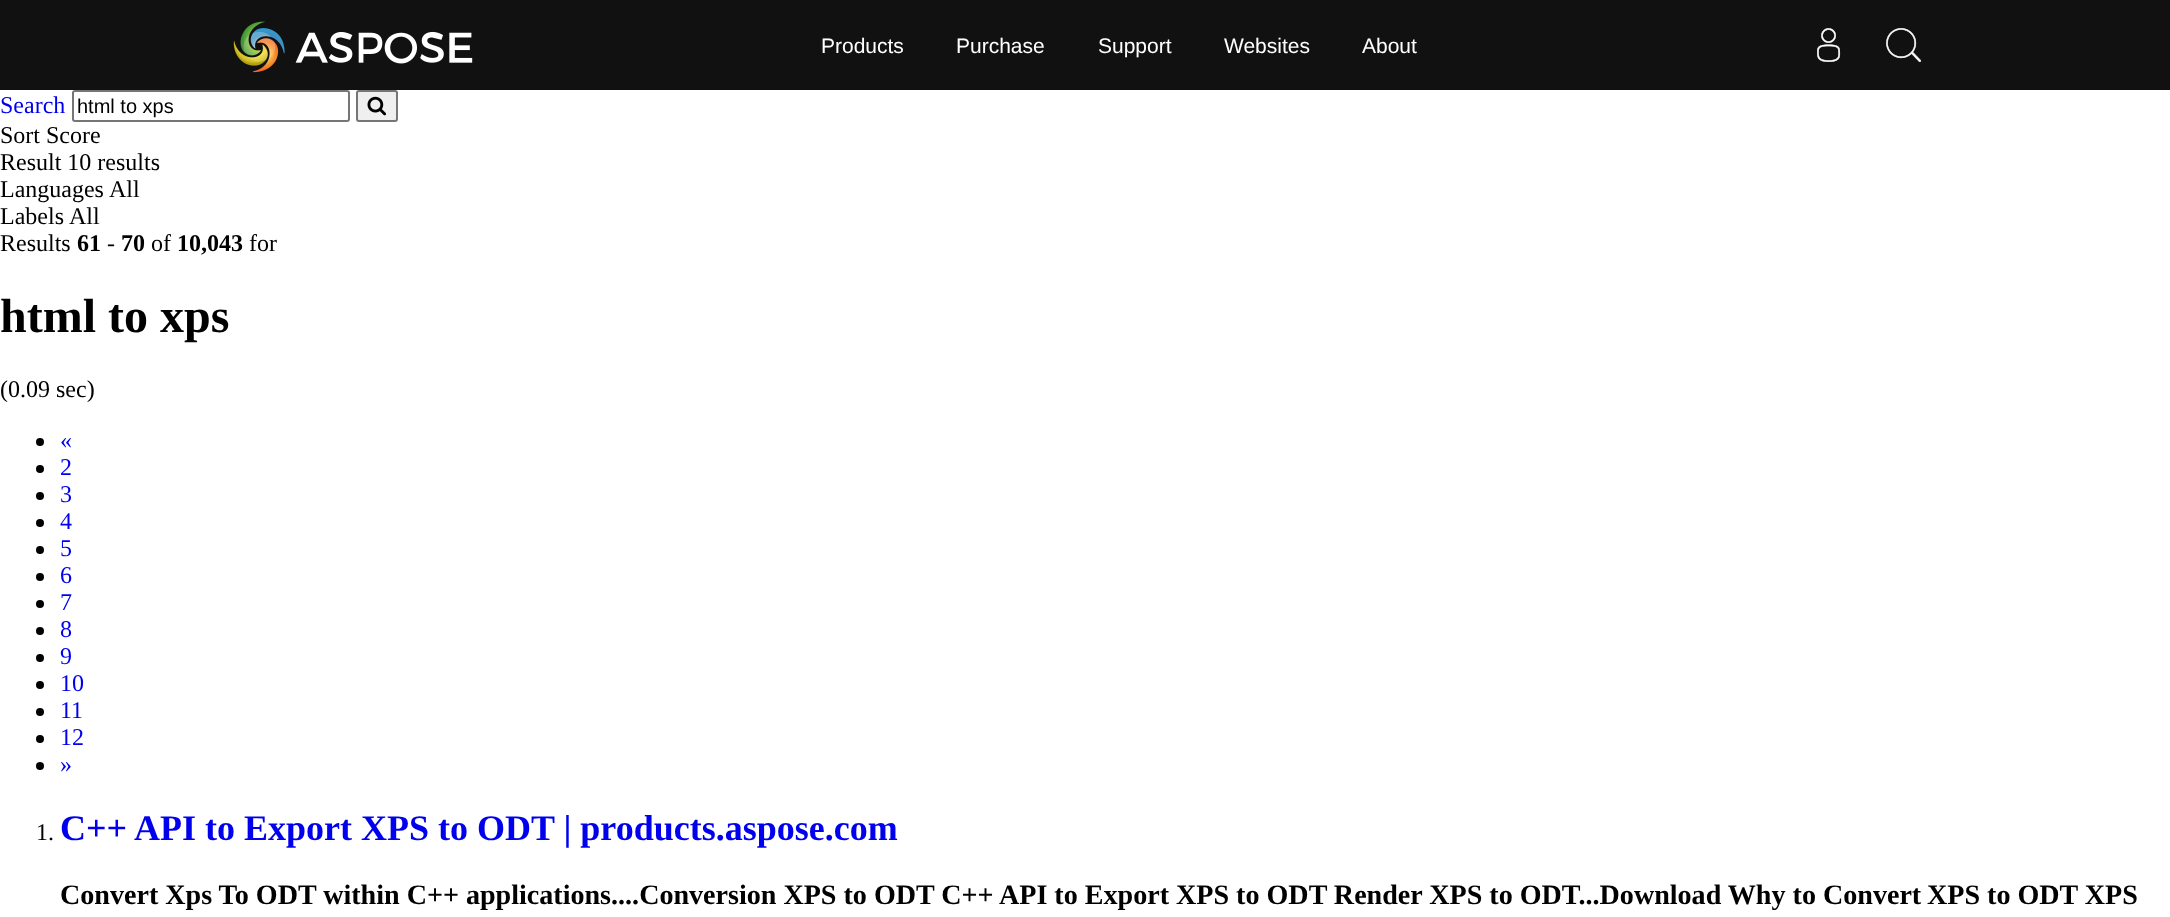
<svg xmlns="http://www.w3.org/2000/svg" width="2170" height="917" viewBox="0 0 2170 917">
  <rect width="100%" height="100%" fill="#ffffff"/>
  <rect x="0" y="0" width="2170" height="90" fill="#111111"/>
  <image x="233" y="21" width="240" height="52" href="img1.png"/>
  <text x="821" y="53" font-family="Liberation Sans" font-size="21" fill="#ffffff">Products</text>
  <text x="956" y="53" font-family="Liberation Sans" font-size="21" fill="#ffffff">Purchase</text>
  <text x="1098" y="53" font-family="Liberation Sans" font-size="21" fill="#ffffff">Support</text>
  <text x="1224" y="53" font-family="Liberation Sans" font-size="21" fill="#ffffff">Websites</text>
  <text x="1362" y="53" font-family="Liberation Sans" font-size="21" fill="#ffffff">About</text>
  <image x="1817" y="28" width="24" height="34" href="img2.png"/>
  <image x="1886" y="28" width="35" height="35" href="img3.png"/>
  <text x="0" y="113" font-family="Liberation Serif" font-size="24" fill="#0000ee">Search</text>
  <rect x="73" y="91" width="276" height="30" rx="2" fill="none" stroke="#767676" stroke-width="2"/>
  <text x="77" y="113" font-family="Liberation Sans" font-size="20" fill="#000000">html to xps</text>
  <rect x="357" y="91" width="40" height="30" rx="2" fill="#efefef" stroke="#767676" stroke-width="2"/>
  <image x="367" y="96" width="19" height="20" href="img4.png"/>
  <text x="0" y="143" font-family="Liberation Serif" font-size="24" fill="#000000">Sort Score</text>
  <text x="0" y="170" font-family="Liberation Serif" font-size="24" fill="#000000">Result 10 results</text>
  <text x="0" y="197" font-family="Liberation Serif" font-size="24" fill="#000000">Languages</text>
  <text x="109" y="197" font-family="Liberation Serif" font-size="24" fill="#000000">All</text>
  <text x="0" y="224" font-family="Liberation Serif" font-size="24" fill="#000000">Labels</text>
  <text x="69" y="224" font-family="Liberation Serif" font-size="24" fill="#000000">All</text>
  <text x="0" y="251" font-family="Liberation Serif" font-size="24" fill="#000000">Results</text>
  <text x="77" y="251" font-family="Liberation Serif" font-size="24" font-weight="bold" fill="#000000">61</text>
  <text x="107" y="251" font-family="Liberation Serif" font-size="24" fill="#000000">-</text>
  <text x="121" y="251" font-family="Liberation Serif" font-size="24" font-weight="bold" fill="#000000">70</text>
  <text x="151" y="251" font-family="Liberation Serif" font-size="24" fill="#000000">of</text>
  <text x="177" y="251" font-family="Liberation Serif" font-size="24" font-weight="bold" fill="#000000">10,043</text>
  <text x="249" y="251" font-family="Liberation Serif" font-size="24" fill="#000000">for</text>
  <text x="0" y="332" font-family="Liberation Serif" font-size="48" font-weight="bold" fill="#000000">html to xps</text>
  <text x="0" y="397" font-family="Liberation Serif" font-size="24" fill="#000000">(0.09 sec)</text>
  <circle cx="40" cy="442" r="4" fill="#000000"/>
  <text x="60" y="448" font-family="Liberation Serif" font-size="24" fill="#0000ee">«</text>
  <circle cx="40" cy="469" r="4" fill="#000000"/>
  <text x="60" y="475" font-family="Liberation Serif" font-size="24" fill="#0000ee">2</text>
  <circle cx="40" cy="496" r="4" fill="#000000"/>
  <text x="60" y="502" font-family="Liberation Serif" font-size="24" fill="#0000ee">3</text>
  <circle cx="40" cy="523" r="4" fill="#000000"/>
  <text x="60" y="529" font-family="Liberation Serif" font-size="24" fill="#0000ee">4</text>
  <circle cx="40" cy="550" r="4" fill="#000000"/>
  <text x="60" y="556" font-family="Liberation Serif" font-size="24" fill="#0000ee">5</text>
  <circle cx="40" cy="577" r="4" fill="#000000"/>
  <text x="60" y="583" font-family="Liberation Serif" font-size="24" fill="#0000ee">6</text>
  <circle cx="40" cy="604" r="4" fill="#000000"/>
  <text x="60" y="610" font-family="Liberation Serif" font-size="24" fill="#0000ee">7</text>
  <circle cx="40" cy="631" r="4" fill="#000000"/>
  <text x="60" y="637" font-family="Liberation Serif" font-size="24" fill="#0000ee">8</text>
  <circle cx="40" cy="658" r="4" fill="#000000"/>
  <text x="60" y="664" font-family="Liberation Serif" font-size="24" fill="#0000ee">9</text>
  <circle cx="40" cy="685" r="4" fill="#000000"/>
  <text x="60" y="691" font-family="Liberation Serif" font-size="24" fill="#0000ee">10</text>
  <circle cx="40" cy="712" r="4" fill="#000000"/>
  <text x="60" y="718" font-family="Liberation Serif" font-size="24" fill="#0000ee">11</text>
  <circle cx="40" cy="739" r="4" fill="#000000"/>
  <text x="60" y="745" font-family="Liberation Serif" font-size="24" fill="#0000ee">12</text>
  <circle cx="40" cy="766" r="4" fill="#000000"/>
  <text x="60" y="772" font-family="Liberation Serif" font-size="24" fill="#0000ee">»</text>
  <text x="36" y="840" font-family="Liberation Serif" font-size="24" fill="#000000">1.</text>
  <text x="60" y="840" font-family="Liberation Serif" font-size="36" font-weight="bold" fill="#0000ee">C++ API to Export XPS to ODT | products.aspose.com</text>
  <text x="60" y="904" font-family="Liberation Serif" font-size="28.08" font-weight="bold" fill="#000000">Convert Xps To ODT within C++ applications....Conversion XPS to ODT C++ API to Export XPS to ODT Render XPS to ODT...Download Why to Convert</text>
  <text x="1927" y="904" font-family="Liberation Serif" font-size="28.08" font-weight="bold" fill="#000000">XPS to ODT XPS</text>
</svg>
